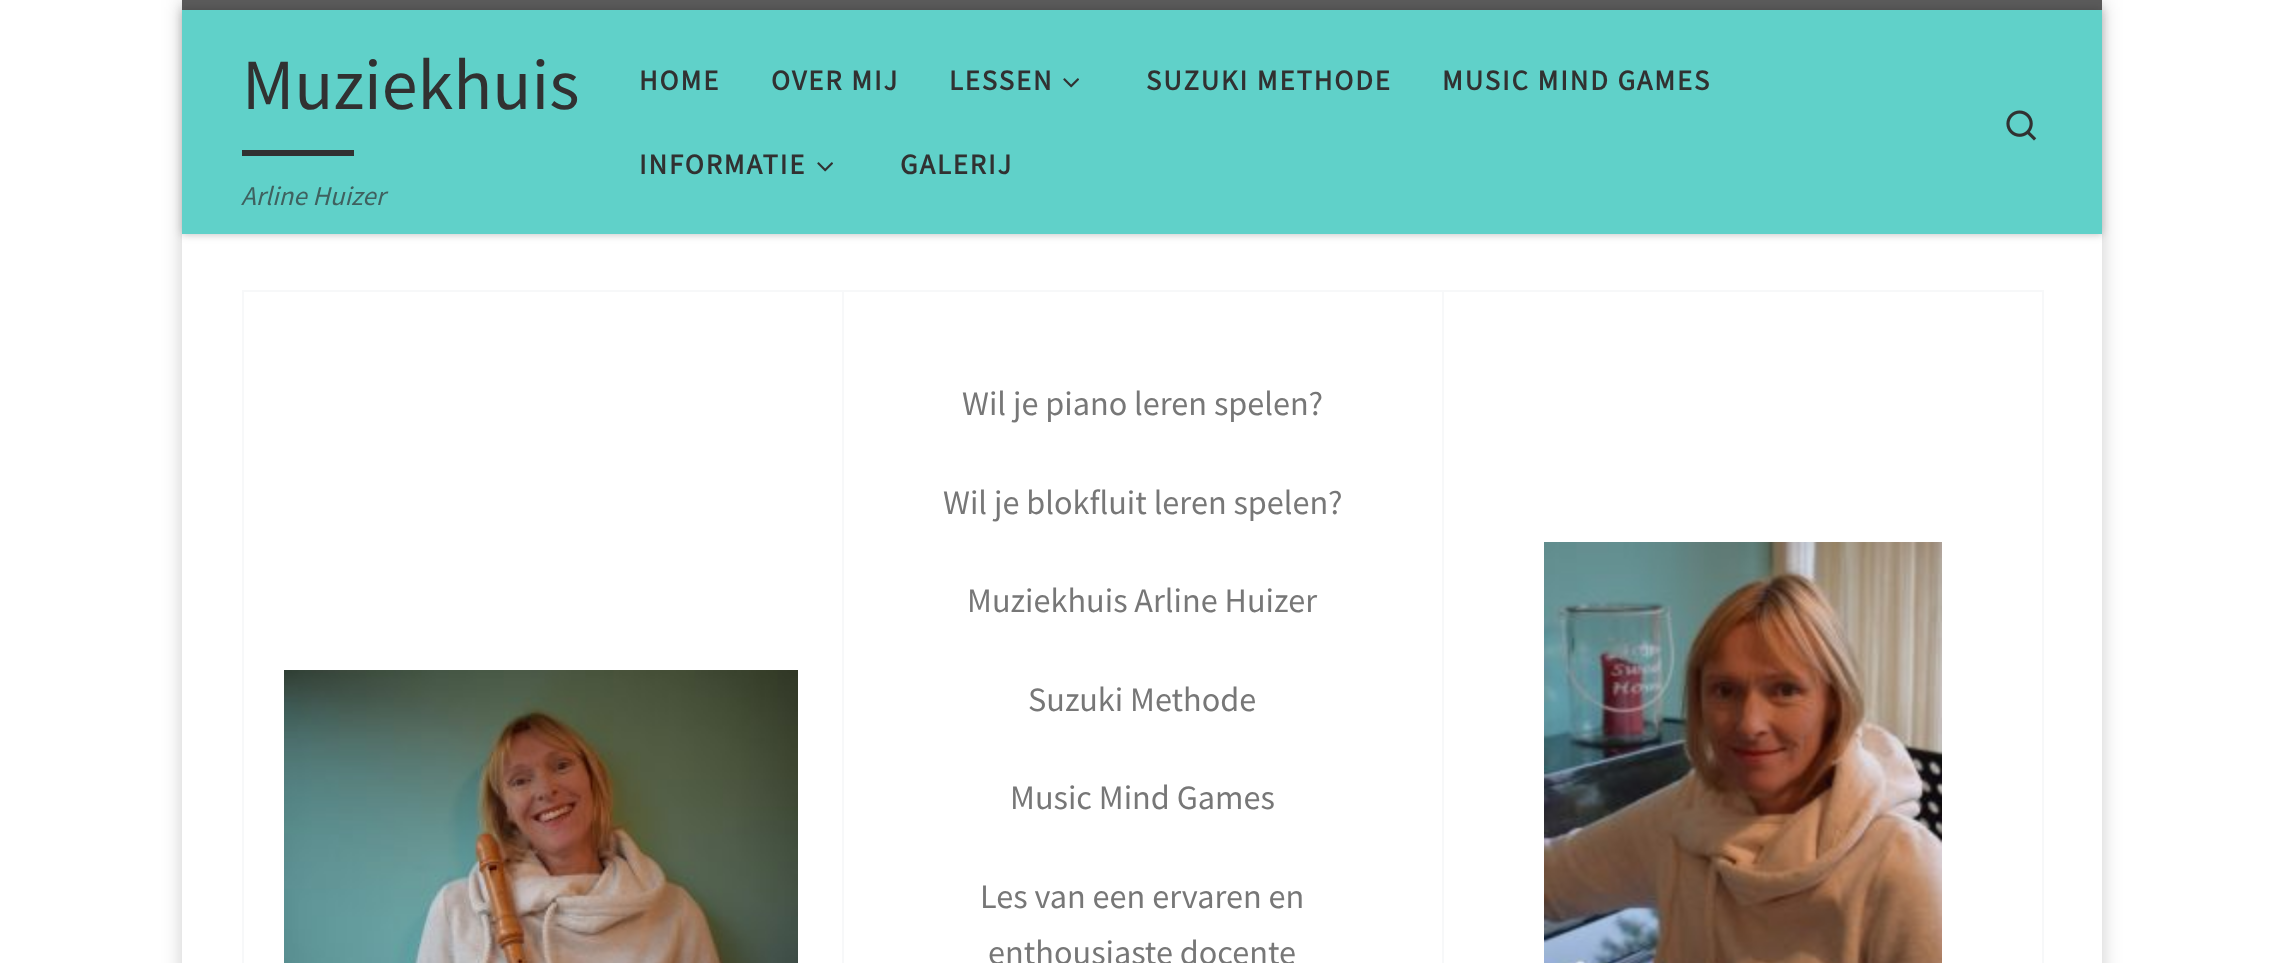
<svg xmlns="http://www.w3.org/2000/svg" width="2283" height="963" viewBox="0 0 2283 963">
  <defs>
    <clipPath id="clip1"><path d="M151 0H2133V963H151ZM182 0H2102V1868H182Z" clip-rule="evenodd"/></clipPath>
    <filter id="blur1" x="-50%" y="-200%" width="200%" height="500%"><feGaussianBlur stdDeviation="10"/></filter>
    <filter id="blur2" x="-50%" y="-200%" width="200%" height="500%"><feGaussianBlur stdDeviation="2"/></filter>
    <filter id="blur3" x="-50%" y="-200%" width="200%" height="500%"><feGaussianBlur stdDeviation="5"/></filter>
  </defs>
  <rect width="100%" height="100%" fill="#ffffff"/>
  <g clip-path="url(#clip1)">
    <rect x="182" y="0" width="1920" height="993" fill="#000000" fill-opacity="0.2" filter="url(#blur1)"/>
  </g>
  <rect x="182" y="4" width="1920" height="232" fill="#666666" fill-opacity="0.08" filter="url(#blur2)"/>
  <rect x="182" y="0" width="1920" height="10" fill="#5a5a5a"/>
  <rect x="182" y="10" width="1920" height="224" fill="#000000" fill-opacity="0.2" filter="url(#blur3)"/>
  <rect x="182" y="10" width="1920" height="224" fill="#60d1c9"/>
  <text x="242" y="109" font-family="Source Sans Pro" font-size="72" fill="#313131">Muziekhuis</text>
  <rect x="242" y="150" width="112" height="6" fill="#313131"/>
  <text x="241" y="205" font-family="Source Sans Pro" font-size="27" font-style="italic" fill="#3f615f">Arline Huizer</text>
  <text x="639" y="90" font-family="Source Sans Pro" font-size="28.5" font-weight="bold" letter-spacing="2" fill="#313131">HOME</text>
  <text x="771" y="90" font-family="Source Sans Pro" font-size="28.5" font-weight="bold" letter-spacing="2" fill="#313131">OVER MIJ</text>
  <text x="949" y="90" font-family="Source Sans Pro" font-size="28.5" font-weight="bold" letter-spacing="2" fill="#313131">LESSEN</text>
  <image x="1063" y="78" width="16" height="10" href="img1.png"/>
  <text x="1146" y="90" font-family="Source Sans Pro" font-size="28.5" font-weight="bold" letter-spacing="2" fill="#313131">SUZUKI METHODE</text>
  <text x="1442" y="90" font-family="Source Sans Pro" font-size="28.5" font-weight="bold" letter-spacing="2" fill="#313131">MUSIC MIND GAMES</text>
  <text x="639" y="174" font-family="Source Sans Pro" font-size="28.5" font-weight="bold" letter-spacing="2" fill="#313131">INFORMATIE</text>
  <image x="817" y="162" width="16" height="10" href="img1.png"/>
  <text x="900" y="174" font-family="Source Sans Pro" font-size="28.5" font-weight="bold" letter-spacing="2" fill="#313131">GALERIJ</text>
  <image x="2006" y="110" width="31" height="31" href="img2.png"/>
  <rect x="1442" y="290" width="602" height="2" fill="#f7f8f9"/>
  <rect x="1442" y="290" width="2" height="673" fill="#f7f8f9"/>
  <rect x="842" y="290" width="602" height="2" fill="#f7f8f9"/>
  <rect x="842" y="290" width="2" height="673" fill="#f7f8f9"/>
  <rect x="242" y="290" width="602" height="2" fill="#f7f8f9"/>
  <rect x="242" y="290" width="2" height="673" fill="#f7f8f9"/>
  <image x="284" y="670" width="514" height="293" href="img3.png"/>
  <text x="962" y="415" font-family="Source Sans Pro" font-size="34.25" fill="#777777">Wil je piano leren spelen?</text>
  <text x="943" y="514" font-family="Source Sans Pro" font-size="34.25" fill="#777777">Wil je blokfluit leren spelen?</text>
  <text x="967" y="612" font-family="Source Sans Pro" font-size="34.25" fill="#777777">Muziekhuis Arline Huizer</text>
  <text x="1028" y="711" font-family="Source Sans Pro" font-size="34.25" fill="#777777">Suzuki Methode</text>
  <text x="1010" y="809" font-family="Source Sans Pro" font-size="34.25" fill="#777777">Music Mind Games</text>
  <text x="980" y="908" font-family="Source Sans Pro" font-size="34.25" fill="#777777">Les van een ervaren en</text>
  <text x="988" y="964" font-family="Source Sans Pro" font-size="34.25" fill="#777777">enthousiaste docente</text>
  <rect x="2042" y="290" width="2" height="673" fill="#f7f8f9"/>
  <image x="1544" y="542" width="398" height="421" href="img4.png"/>
</svg>
